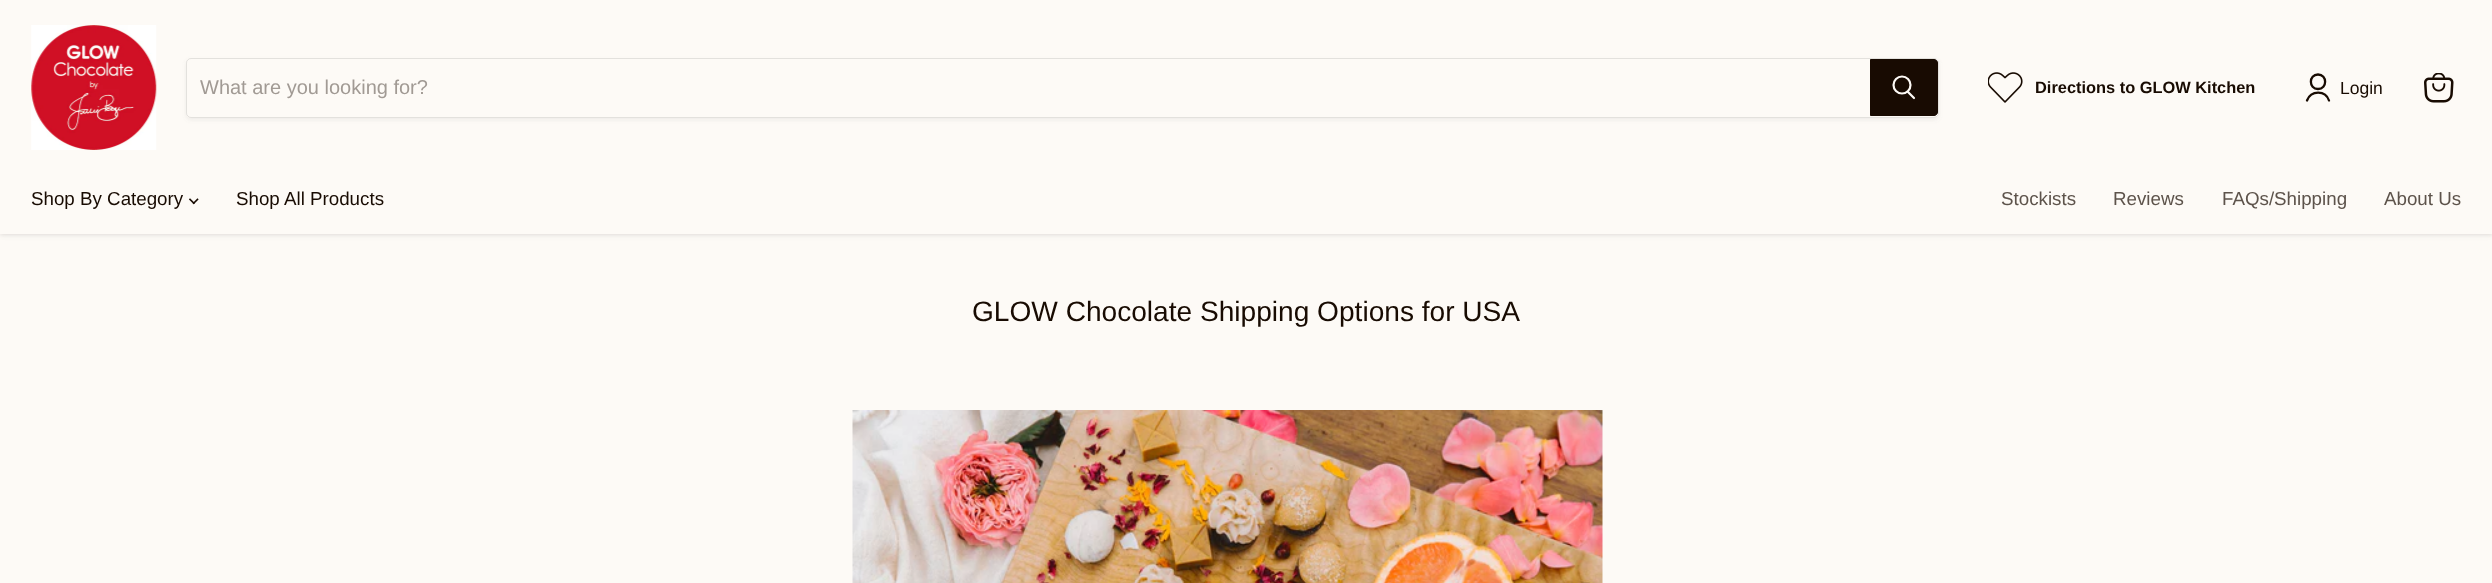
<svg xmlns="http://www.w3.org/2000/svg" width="2492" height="583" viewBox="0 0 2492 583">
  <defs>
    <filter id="blur1" x="-50%" y="-200%" width="200%" height="500%"><feGaussianBlur stdDeviation="2.5"/></filter>
    <clipPath id="clip1"><path d="M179 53H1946V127H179ZM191 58H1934C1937 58 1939 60 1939 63V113C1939 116 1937 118 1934 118H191C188 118 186 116 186 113V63C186 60 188 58 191 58Z" clip-rule="evenodd"/></clipPath>
    <filter id="blur2" x="-50%" y="-200%" width="200%" height="500%"><feGaussianBlur stdDeviation="2"/></filter>
  </defs>
  <rect width="100%" height="100%" fill="#fdfaf6"/>
  <rect x="0" y="1" width="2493" height="234" fill="#7f7d7b" fill-opacity="0.25" filter="url(#blur1)"/>
  <rect x="0" y="0" width="2492" height="234" fill="#fdfaf6"/>
  <image x="31" y="25" width="126" height="125" href="img1.png"/>
  <g clip-path="url(#clip1)">
    <rect x="186" y="60" width="1753" height="60" rx="5" fill="#7f7d7b" fill-opacity="0.11" filter="url(#blur2)"/>
  </g>
  <rect x="186.5" y="58.5" width="1752" height="59" rx="4.5" fill="none" stroke="#7f7d7b" stroke-opacity="0.2"/>
  <text x="200" y="94" font-family="Liberation Sans" font-size="20" fill="#a19a94">What are you looking for?</text>
  <path d="M1870.5 59.5H1934C1936 59.5 1937.5 61 1937.5 63V112C1937.5 114 1936 115.5 1934 115.5H1870.5Z" fill="#180b02" stroke="#180b02"/>
  <path d="M1914 98L1908 92" fill="none" stroke="#fdfaf6" stroke-width="2.2" stroke-linecap="round"/>
  <circle cx="1902" cy="85" r="8.5" fill="none" stroke="#fdfaf6" stroke-width="2.2"/>
  <image x="1988" y="72" width="35" height="31" href="img2.png"/>
  <text x="2035" y="93" font-family="Liberation Sans" font-size="16.4" font-weight="bold" fill="#180b02">Directions to GLOW Kitchen</text>
  <path d="M2318 89C2327.5 89 2327.5 74.5 2318 74.5C2308.5 74.5 2308.5 89 2318 89ZM2329 100.5C2325.5 90 2311 90 2307 100.5" fill="none" stroke="#180b02" stroke-width="2.3" stroke-linecap="round" stroke-linejoin="round"/>
  <text x="2340" y="94" font-family="Liberation Sans" font-size="17.5" fill="#180b02">Login</text>
  <image x="2424" y="73" width="30" height="30" href="img3.png"/>
  <text x="31" y="205" font-family="Liberation Sans" font-size="18.75" fill="#180b02">Shop By Category</text>
  <image x="189" y="198" width="10" height="7" href="img4.png"/>
  <text x="236" y="205" font-family="Liberation Sans" font-size="18.75" fill="#180b02">Shop All Products</text>
  <text x="2001" y="205" font-family="Liberation Sans" font-size="18.75" fill="#5d534b">Stockists</text>
  <text x="2113" y="205" font-family="Liberation Sans" font-size="18.75" fill="#5d534b">Reviews</text>
  <text x="2222" y="205" font-family="Liberation Sans" font-size="18.75" fill="#5d534b">FAQs/Shipping</text>
  <text x="2384" y="205" font-family="Liberation Sans" font-size="18.75" fill="#5d534b">About Us</text>
  <text x="972" y="321" font-family="Liberation Sans" font-size="28.1" fill="#180b02">GLOW Chocolate Shipping Options for USA</text>
  <image x="852" y="410" width="751" height="173" href="img5.png"/>
</svg>
